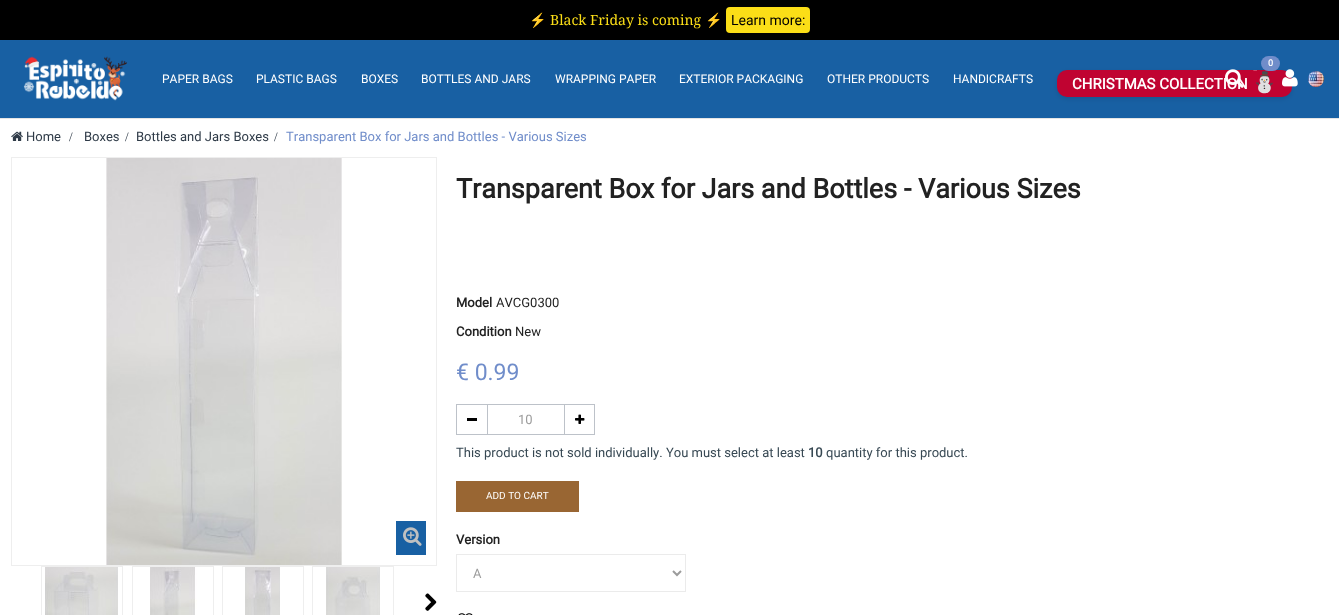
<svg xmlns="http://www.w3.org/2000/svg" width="1339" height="615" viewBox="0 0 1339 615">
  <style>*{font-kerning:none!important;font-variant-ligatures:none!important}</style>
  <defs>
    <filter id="blur1" x="-50%" y="-200%" width="200%" height="500%"><feGaussianBlur stdDeviation="2.5"/></filter>
  </defs>
  <rect width="100%" height="100%" fill="#ffffff"/>
  <rect x="0" y="118" width="1339" height="1" fill="#e5e5e5"/>
  <rect x="0" y="0" width="1339" height="40" fill="#000000"/>
  <text x="529" y="25" font-family="Noto Color Emoji" font-size="14" fill="#fbde17">⚡</text>
  <text x="550" y="25" font-family="Noto Serif" font-size="14" fill="#fbde17">Black Friday is coming</text>
  <text x="705" y="25" font-family="Noto Color Emoji" font-size="14" fill="#fbde17">⚡</text>
  <rect x="726" y="7" width="84" height="26" rx="4" fill="#fbde17"/>
  <text x="731" y="25" font-family="Roboto" font-size="14" fill="#000000">Learn more:</text>
  <rect x="0" y="40" width="1339" height="78" fill="#1860a3"/>
  <image x="23" y="56" width="104" height="45" href="img1.png"/>
  <rect x="1057" y="72" width="235" height="27" rx="10" fill="#000000" fill-opacity="0.1" filter="url(#blur1)"/>
  <rect x="1057" y="70" width="235" height="27" rx="10" fill="#c00331"/>
  <rect x="1261" y="56" width="19" height="15" rx="7.5" fill="#708dca"/>
  <text x="1268" y="66" font-family="Roboto" font-size="9" font-weight="bold" fill="#ffffff">0</text>
  <image x="1253" y="70" width="4" height="1" href="img2.png"/>
  <text x="1072" y="89" font-family="Roboto" font-size="15" font-weight="bold" fill="#ffffff">CHRISTMAS COLLECTION</text>
  <image x="1225" y="69" width="19" height="19" href="img3.png"/>
  <image x="1282" y="69" width="16" height="18" href="img4.png"/>
  <image x="1308" y="71" width="16" height="16" href="img5.png"/>
  <text x="162" y="83" font-family="Roboto" font-size="12" fill="#ffffff">PAPER BAGS</text>
  <text x="256" y="83" font-family="Roboto" font-size="12" fill="#ffffff">PLASTIC BAGS</text>
  <text x="361" y="83" font-family="Roboto" font-size="12" fill="#ffffff">BOXES</text>
  <text x="421" y="83" font-family="Roboto" font-size="12" fill="#ffffff">BOTTLES AND JARS</text>
  <text x="555" y="83" font-family="Roboto" font-size="12" fill="#ffffff">WRAPPING PAPER</text>
  <text x="679" y="83" font-family="Roboto" font-size="12" fill="#ffffff">EXTERIOR PACKAGING</text>
  <text x="827" y="83" font-family="Roboto" font-size="12" fill="#ffffff">OTHER PRODUCTS</text>
  <text x="953" y="83" font-family="Roboto" font-size="12" fill="#ffffff">HANDICRAFTS</text>
  <text x="1252" y="89" font-family="Noto Color Emoji" font-size="20" font-weight="bold" fill="#ffffff">⛄</text>
  <image x="11" y="131" width="12" height="10" href="img6.png"/>
  <text x="26" y="141" font-family="Roboto" font-size="13" fill="#2e3a47">Home</text>
  <text x="69" y="141" font-family="Liberation Serif" font-size="13" fill="#2e3a47">/</text>
  <text x="84" y="141" font-family="Roboto" font-size="13" fill="#2e3a47">Boxes</text>
  <text x="125" y="141" font-family="Liberation Serif" font-size="13" fill="#2e3a47">/</text>
  <text x="136" y="141" font-family="Roboto" font-size="13" fill="#2e3a47">Bottles and Jars Boxes</text>
  <text x="274" y="141" font-family="Liberation Serif" font-size="13" fill="#2e3a47">/</text>
  <text x="286" y="141" font-family="Roboto" font-size="13" fill="#708dca">Transparent Box for Jars and Bottles - Various Sizes</text>
  <rect x="11.5" y="157.5" width="425" height="408" fill="none" stroke="#eeeeee"/>
  <image x="106" y="158" width="236" height="407" href="img7.png"/>
  <rect x="396" y="521" width="30" height="34" fill="#1860a3"/>
  <image x="403" y="527" width="19" height="19" href="img8.png"/>
  <rect x="41.5" y="566.5" width="81" height="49" fill="none" stroke="#eeeeee"/>
  <image x="45" y="567" width="73" height="48" href="img9.png"/>
  <rect x="132.5" y="566.5" width="81" height="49" fill="none" stroke="#eeeeee"/>
  <image x="150" y="567" width="47" height="48" href="img10.png"/>
  <rect x="222.5" y="566.5" width="81" height="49" fill="none" stroke="#eeeeee"/>
  <image x="245" y="567" width="35" height="48" href="img11.png"/>
  <rect x="312.5" y="566.5" width="81" height="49" fill="none" stroke="#eeeeee"/>
  <image x="326" y="567" width="54" height="48" href="img12.png"/>
  <image x="425" y="593" width="12" height="18" href="img13.png"/>
  <text x="456" y="198" font-family="Roboto" font-size="27" font-weight="bold" fill="#222222">Transparent Box for Jars and Bottles - Various Sizes</text>
  <text x="456" y="307" font-family="Roboto" font-size="13" font-weight="bold" fill="#222222">Model</text>
  <text x="496" y="307" font-family="Roboto" font-size="13" fill="#222222">AVCG0300</text>
  <text x="456" y="336" font-family="Roboto" font-size="13" font-weight="bold" fill="#222222">Condition</text>
  <text x="515" y="336" font-family="Roboto" font-size="13" fill="#222222">New</text>
  <text x="456" y="380" font-family="Roboto" font-size="23" fill="#708dca">€ 0.99</text>
  <rect x="456.5" y="404.5" width="31" height="30" fill="none" stroke="#bdc2c9"/>
  <rect x="467" y="418" width="10" height="3" fill="#000000"/>
  <rect x="487.5" y="404.5" width="77" height="30" fill="none" stroke="#bdc2c9"/>
  <text x="518" y="424" font-family="Roboto" font-size="13" fill="#9c9c9c">10</text>
  <rect x="564.5" y="404.5" width="30" height="30" fill="none" stroke="#bdc2c9"/>
  <image x="575" y="414" width="10" height="10" href="img14.png"/>
  <text x="456" y="457" font-family="Roboto" font-size="13" fill="#374853">This product is not sold individually. You must select at least</text>
  <text x="808" y="457" font-family="Roboto" font-size="13" font-weight="bold" fill="#374853">10</text>
  <text x="826" y="457" font-family="Roboto" font-size="13" fill="#374853">quantity for this product.</text>
  <rect x="456" y="481" width="123" height="31" fill="#996633"/>
  <text x="486" y="499" font-family="Roboto" font-size="10" fill="#ffffff">ADD TO CART</text>
  <text x="456" y="544" font-family="Roboto" font-size="13" font-weight="bold" fill="#222222">Version</text>
  <rect x="456.5" y="554.5" width="229" height="37" fill="none" stroke="#ebebeb"/>
  <path d="M673 571L677 575L681 571" fill="none" stroke="#9c9c9c" stroke-width="2"/>
  <text x="473" y="578" font-family="Roboto" font-size="13" fill="#9c9c9c">A</text>
  <image x="458" y="613" width="15" height="2" href="img15.png"/>
</svg>
